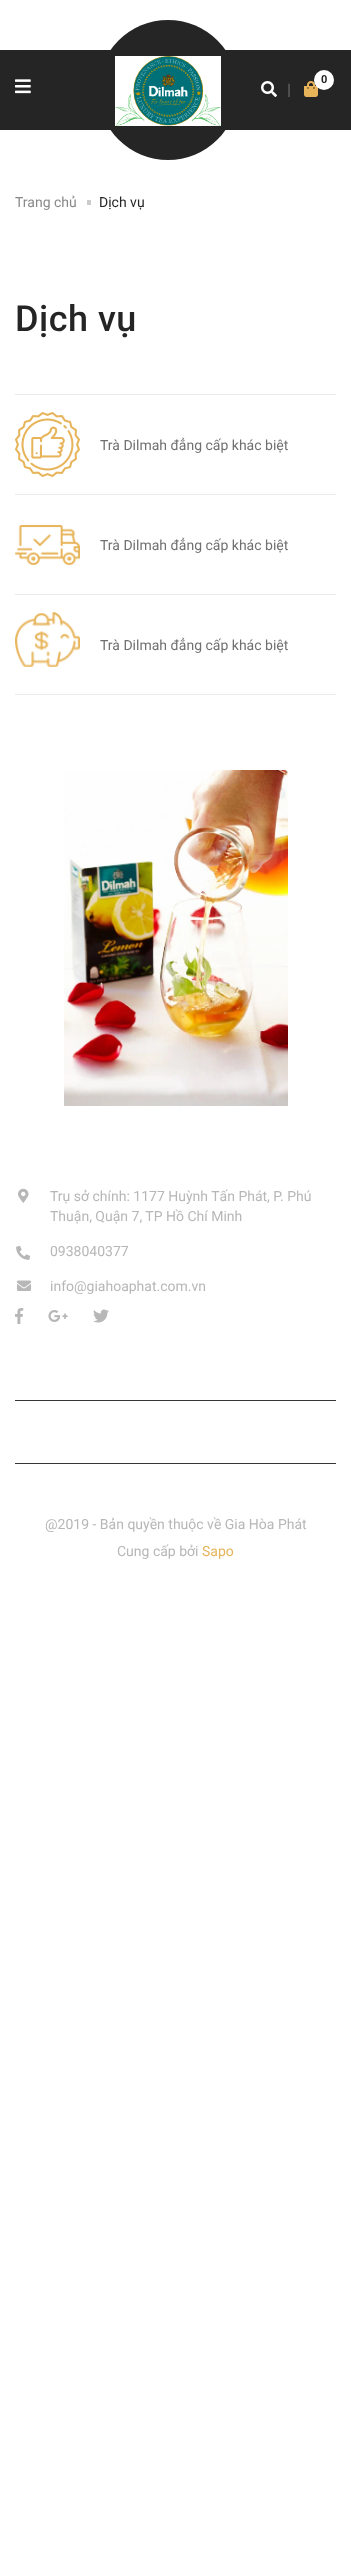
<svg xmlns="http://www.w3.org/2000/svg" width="351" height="2565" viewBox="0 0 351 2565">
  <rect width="100%" height="100%" fill="#ffffff"/>
  <rect x="0" y="50" width="351" height="80" fill="#252525"/>
  <image x="15" y="79" width="16" height="15" href="img1.png"/>
  <circle cx="168" cy="90" r="70" fill="#252525"/>
  <image x="115" y="56" width="106" height="70" href="img2.png"/>
  <image x="304" y="81" width="14" height="16" href="img3.png"/>
  <circle cx="324" cy="80" r="10" fill="#ffffff"/>
  <text x="321" y="83" font-family="Roboto" font-size="11" font-weight="bold" fill="#252525">0</text>
  <image x="261" y="81" width="16" height="16" href="img4.png"/>
  <text x="287" y="95" font-family="Roboto" font-size="16" font-weight="bold" fill="#636363">|</text>
  <text x="15" y="207" font-family="Roboto" font-size="14" fill="#898989">Trang chủ</text>
  <rect x="87" y="200" width="4" height="5" fill="#cccccc"/>
  <text x="99" y="207" font-family="Roboto" font-size="14" fill="#252525">Dịch vụ</text>
  <text x="15" y="331" font-family="Roboto" font-size="36" font-weight="500" letter-spacing="0.5" fill="#252525">Dịch vụ</text>
  <rect x="15" y="394" width="321" height="1" fill="#ebebeb"/>
  <rect x="15" y="494" width="321" height="1" fill="#ebebeb"/>
  <image x="15" y="412" width="65" height="65" href="img5.png"/>
  <text x="100" y="450" font-family="Roboto" font-size="14" fill="#707070">Trà Dilmah đẳng cấp khác biệt</text>
  <rect x="15" y="594" width="321" height="1" fill="#ebebeb"/>
  <image x="15" y="525" width="65" height="40" href="img6.png"/>
  <text x="100" y="550" font-family="Roboto" font-size="14" fill="#707070">Trà Dilmah đẳng cấp khác biệt</text>
  <rect x="15" y="694" width="321" height="1" fill="#ebebeb"/>
  <image x="15" y="612" width="65" height="55" href="img7.png"/>
  <text x="100" y="650" font-family="Roboto" font-size="14" fill="#707070">Trà Dilmah đẳng cấp khác biệt</text>
  <image x="64" y="770" width="224" height="336" href="img8.png"/>
  <image x="18" y="1188" width="11" height="15" href="img9.png"/>
  <text x="50" y="1201" font-family="Roboto" font-size="14" fill="#b7b7b7">Trụ sở chính: 1177 Huỳnh Tấn Phát, P. Phú</text>
  <text x="50" y="1221" font-family="Roboto" font-size="14" fill="#b7b7b7">Thuận, Quận 7, TP Hồ Chí Minh</text>
  <image x="16" y="1246" width="15" height="14" href="img10.png"/>
  <text x="50" y="1256" font-family="Roboto" font-size="14" fill="#b7b7b7">0938040377</text>
  <image x="17" y="1280" width="14" height="11" href="img11.png"/>
  <text x="50" y="1291" font-family="Roboto" font-size="14" fill="#b7b7b7">info@giahoaphat.com.vn</text>
  <image x="15" y="1308" width="9" height="16" href="img12.png"/>
  <image x="48" y="1310" width="20" height="12" href="img13.png"/>
  <image x="93" y="1309" width="16" height="14" href="img14.png"/>
  <rect x="15" y="1400" width="321" height="1" fill="#363636"/>
  <rect x="15" y="1463" width="321" height="1" fill="#363636"/>
  <text x="45" y="1529" font-family="Roboto" font-size="14" fill="#b7b7b7">@2019 - Bản quyền thuộc về Gia Hòa Phát</text>
  <text x="117" y="1556" font-family="Roboto" font-size="14" fill="#b7b7b7">Cung cấp bởi</text>
  <text x="202" y="1556" font-family="Roboto" font-size="14" fill="#e7b45a">Sapo</text>
</svg>
